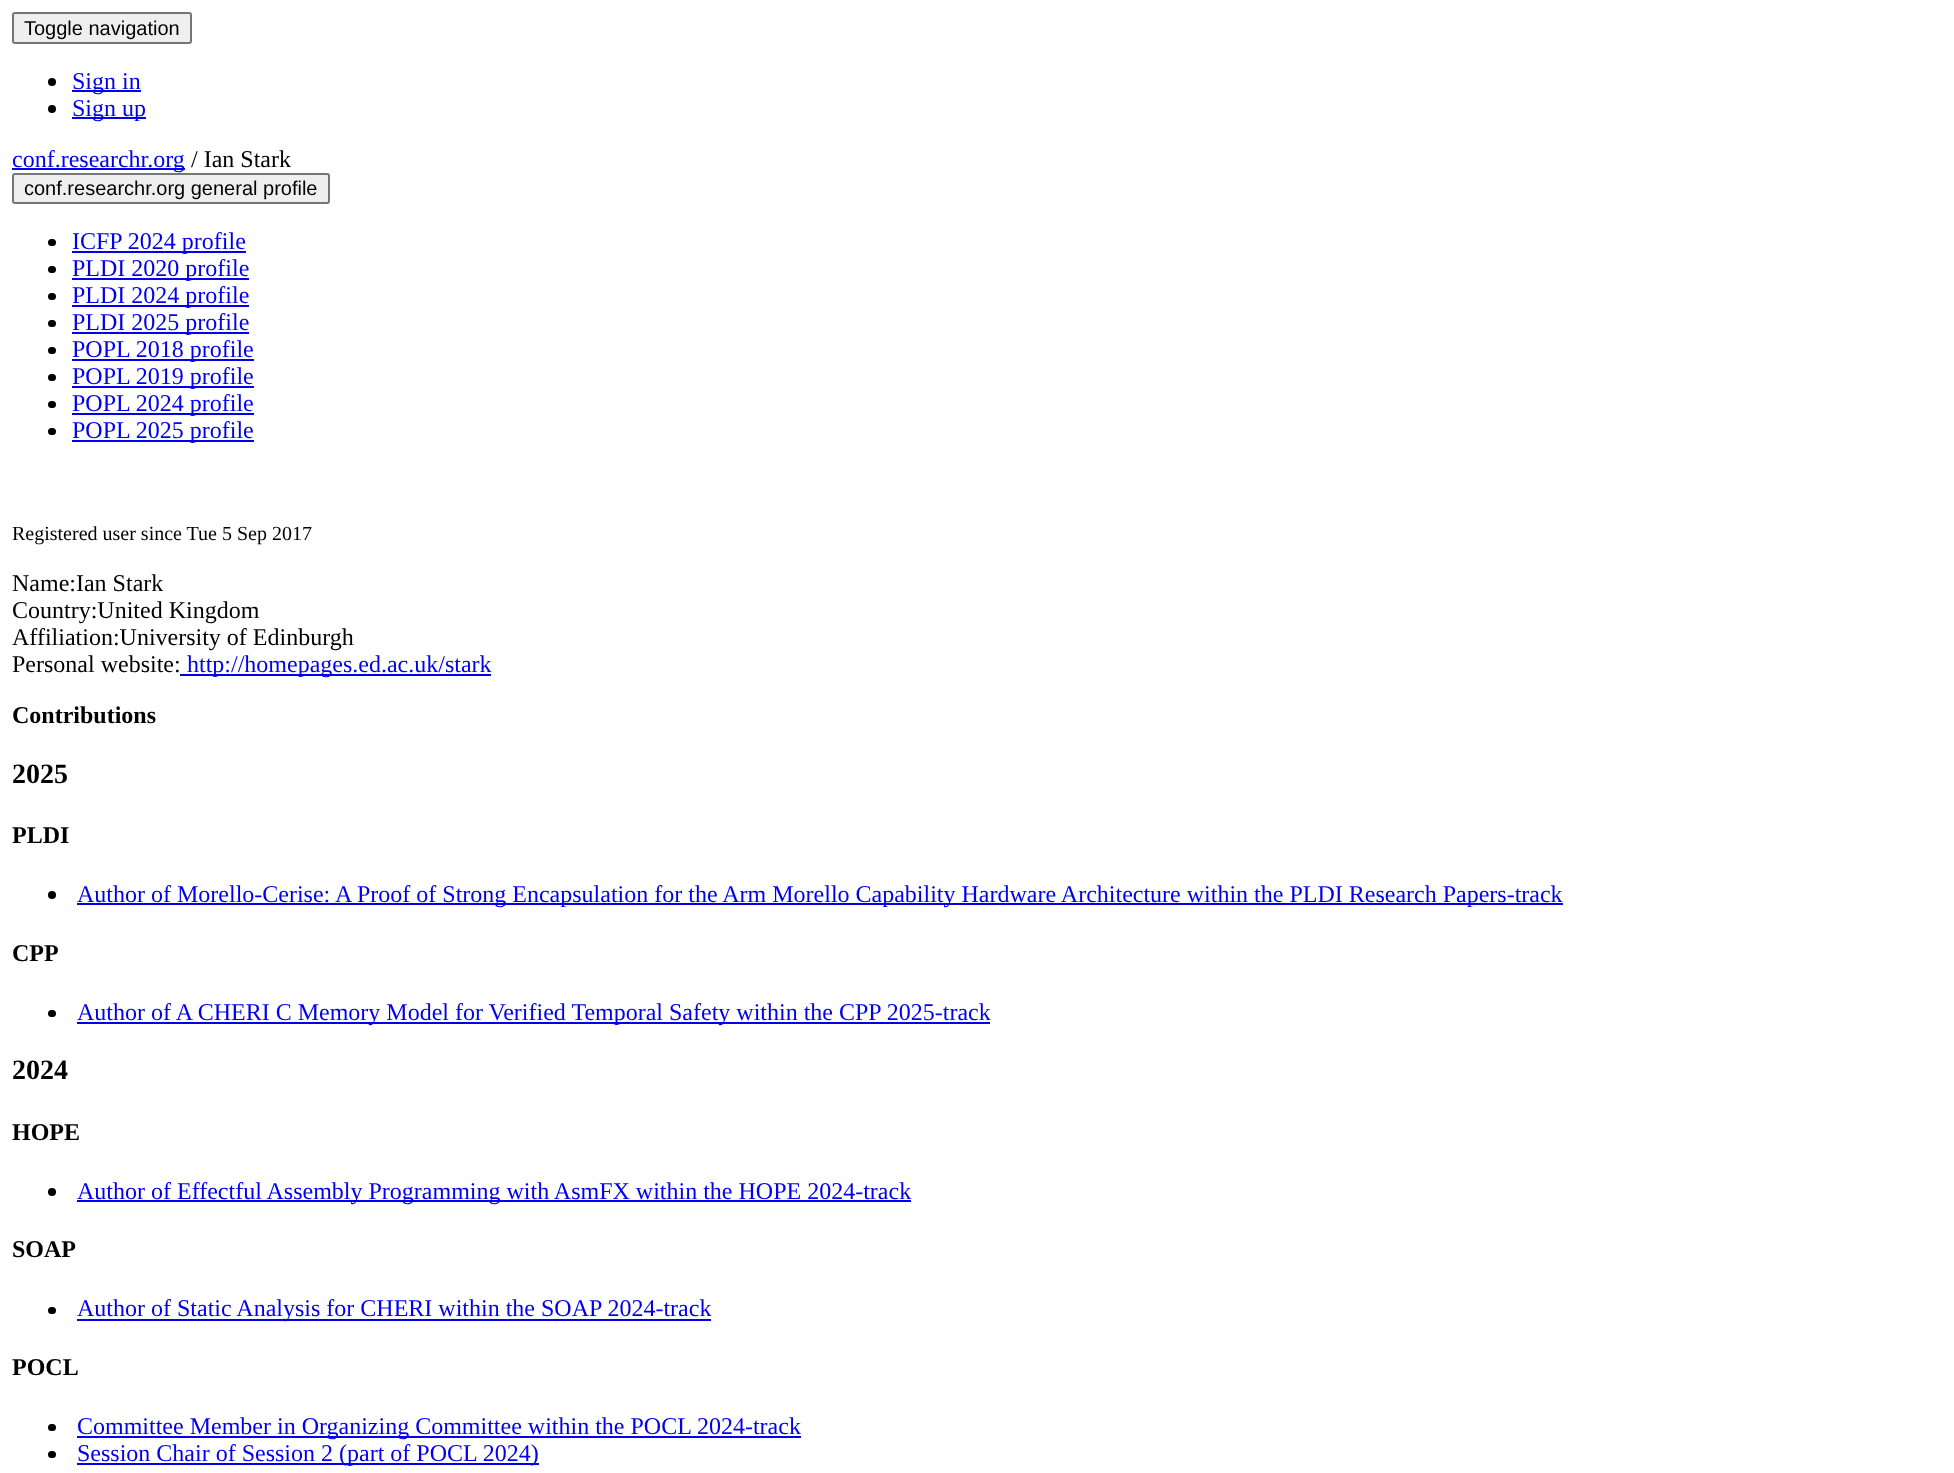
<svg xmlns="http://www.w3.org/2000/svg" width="1954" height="1473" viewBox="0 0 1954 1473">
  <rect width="100%" height="100%" fill="#ffffff"/>
  <rect x="13" y="13" width="178" height="30" rx="2" fill="#efefef" stroke="#767676" stroke-width="2"/>
  <text x="24" y="35" font-family="Liberation Sans" font-size="20" fill="#000000">Toggle navigation</text>
  <circle cx="52" cy="82" r="4" fill="#000000"/>
  <rect x="72" y="90" width="69" height="2" fill="#0000ee"/>
  <text x="72" y="89" font-family="Liberation Serif" font-size="24" fill="#0000ee">Sign in</text>
  <circle cx="52" cy="109" r="4" fill="#000000"/>
  <rect x="72" y="117" width="74" height="2" fill="#0000ee"/>
  <text x="72" y="116" font-family="Liberation Serif" font-size="24" fill="#0000ee">Sign up</text>
  <rect x="12" y="168" width="173" height="2" fill="#0000ee"/>
  <text x="12" y="167" font-family="Liberation Serif" font-size="24" fill="#0000ee">conf.researchr.org</text>
  <text x="191" y="167" font-family="Liberation Serif" font-size="24" fill="#000000">/ Ian Stark</text>
  <rect x="13" y="174" width="316" height="29" rx="2" fill="#efefef" stroke="#767676" stroke-width="2"/>
  <text x="24" y="195" font-family="Liberation Sans" font-size="20" fill="#000000">conf.researchr.org general profile</text>
  <rect x="48" y="239" width="8" height="7" rx="3.5" fill="#000000"/>
  <rect x="72" y="251" width="174" height="2" fill="#0000ee"/>
  <text x="72" y="249" font-family="Liberation Serif" font-size="24" fill="#0000ee">ICFP 2024 profile</text>
  <rect x="48" y="266" width="8" height="7" rx="3.5" fill="#000000"/>
  <rect x="72" y="278" width="177" height="2" fill="#0000ee"/>
  <text x="72" y="276" font-family="Liberation Serif" font-size="24" fill="#0000ee">PLDI 2020 profile</text>
  <rect x="48" y="293" width="8" height="7" rx="3.5" fill="#000000"/>
  <rect x="72" y="305" width="177" height="2" fill="#0000ee"/>
  <text x="72" y="303" font-family="Liberation Serif" font-size="24" fill="#0000ee">PLDI 2024 profile</text>
  <rect x="48" y="320" width="8" height="7" rx="3.5" fill="#000000"/>
  <rect x="72" y="332" width="177" height="2" fill="#0000ee"/>
  <text x="72" y="330" font-family="Liberation Serif" font-size="24" fill="#0000ee">PLDI 2025 profile</text>
  <rect x="48" y="347" width="8" height="7" rx="3.5" fill="#000000"/>
  <rect x="72" y="359" width="182" height="2" fill="#0000ee"/>
  <text x="72" y="357" font-family="Liberation Serif" font-size="24" fill="#0000ee">POPL 2018 profile</text>
  <rect x="48" y="374" width="8" height="7" rx="3.5" fill="#000000"/>
  <rect x="72" y="386" width="182" height="2" fill="#0000ee"/>
  <text x="72" y="384" font-family="Liberation Serif" font-size="24" fill="#0000ee">POPL 2019 profile</text>
  <rect x="48" y="401" width="8" height="7" rx="3.5" fill="#000000"/>
  <rect x="72" y="413" width="182" height="2" fill="#0000ee"/>
  <text x="72" y="411" font-family="Liberation Serif" font-size="24" fill="#0000ee">POPL 2024 profile</text>
  <rect x="48" y="428" width="8" height="7" rx="3.5" fill="#000000"/>
  <rect x="72" y="440" width="182" height="2" fill="#0000ee"/>
  <text x="72" y="438" font-family="Liberation Serif" font-size="24" fill="#0000ee">POPL 2025 profile</text>
  <text x="12" y="540" font-family="Liberation Serif" font-size="20" fill="#000000">Registered user since Tue 5 Sep 2017</text>
  <text x="12" y="591" font-family="Liberation Serif" font-size="24" fill="#000000">Name:Ian Stark</text>
  <text x="12" y="618" font-family="Liberation Serif" font-size="24" fill="#000000">Country:United Kingdom</text>
  <text x="12" y="645" font-family="Liberation Serif" font-size="24" fill="#000000">Affiliation:University of Edinburgh</text>
  <text x="12" y="672" font-family="Liberation Serif" font-size="24" fill="#000000">Personal website:</text>
  <rect x="180" y="674" width="311" height="2" fill="#0000ee"/>
  <text x="187" y="672" font-family="Liberation Serif" font-size="24" fill="#0000ee">http://homepages.ed.ac.uk/stark</text>
  <text x="12" y="723" font-family="Liberation Serif" font-size="24" font-weight="bold" fill="#000000">Contributions</text>
  <text x="12" y="783" font-family="Liberation Serif" font-size="28" font-weight="bold" fill="#000000">2025</text>
  <text x="12" y="843" font-family="Liberation Serif" font-size="24" font-weight="bold" fill="#000000">PLDI</text>
  <circle cx="52" cy="895" r="4" fill="#000000"/>
  <rect x="77" y="903" width="1486" height="2" fill="#0000ee"/>
  <text x="77" y="902" font-family="Liberation Serif" font-size="24" fill="#0000ee">Author of Morello-Cerise: A Proof of Strong Encapsulation for the Arm Morello Capability Hardware Architecture within the PLDI Research Papers-track</text>
  <text x="12" y="961" font-family="Liberation Serif" font-size="24" font-weight="bold" fill="#000000">CPP</text>
  <rect x="48" y="1010" width="8" height="7" rx="3.5" fill="#000000"/>
  <rect x="77" y="1022" width="913" height="2" fill="#0000ee"/>
  <text x="77" y="1020" font-family="Liberation Serif" font-size="24" fill="#0000ee">Author of A CHERI C Memory Model for Verified Temporal Safety within the CPP 2025-track</text>
  <text x="12" y="1079" font-family="Liberation Serif" font-size="28" font-weight="bold" fill="#000000">2024</text>
  <text x="12" y="1140" font-family="Liberation Serif" font-size="24" font-weight="bold" fill="#000000">HOPE</text>
  <circle cx="52" cy="1192" r="4" fill="#000000"/>
  <rect x="77" y="1200" width="834" height="2" fill="#0000ee"/>
  <text x="77" y="1199" font-family="Liberation Serif" font-size="24" fill="#0000ee">Author of Effectful Assembly Programming with AsmFX within the HOPE 2024-track</text>
  <text x="12" y="1257" font-family="Liberation Serif" font-size="24" font-weight="bold" fill="#000000">SOAP</text>
  <rect x="48" y="1307" width="8" height="7" rx="3.5" fill="#000000"/>
  <rect x="77" y="1319" width="634" height="2" fill="#0000ee"/>
  <text x="77" y="1316" font-family="Liberation Serif" font-size="24" fill="#0000ee">Author of Static Analysis for CHERI within the SOAP 2024-track</text>
  <text x="12" y="1375" font-family="Liberation Serif" font-size="24" font-weight="bold" fill="#000000">POCL</text>
  <rect x="48" y="1424" width="8" height="7" rx="3.5" fill="#000000"/>
  <rect x="77" y="1436" width="724" height="2" fill="#0000ee"/>
  <text x="77" y="1434" font-family="Liberation Serif" font-size="24" fill="#0000ee">Committee Member in Organizing Committee within the POCL 2024-track</text>
  <rect x="48" y="1451" width="8" height="7" rx="3.5" fill="#000000"/>
  <rect x="77" y="1463" width="462" height="2" fill="#0000ee"/>
  <text x="77" y="1461" font-family="Liberation Serif" font-size="24" fill="#0000ee">Session Chair of Session 2 (part of POCL 2024)</text>
</svg>
